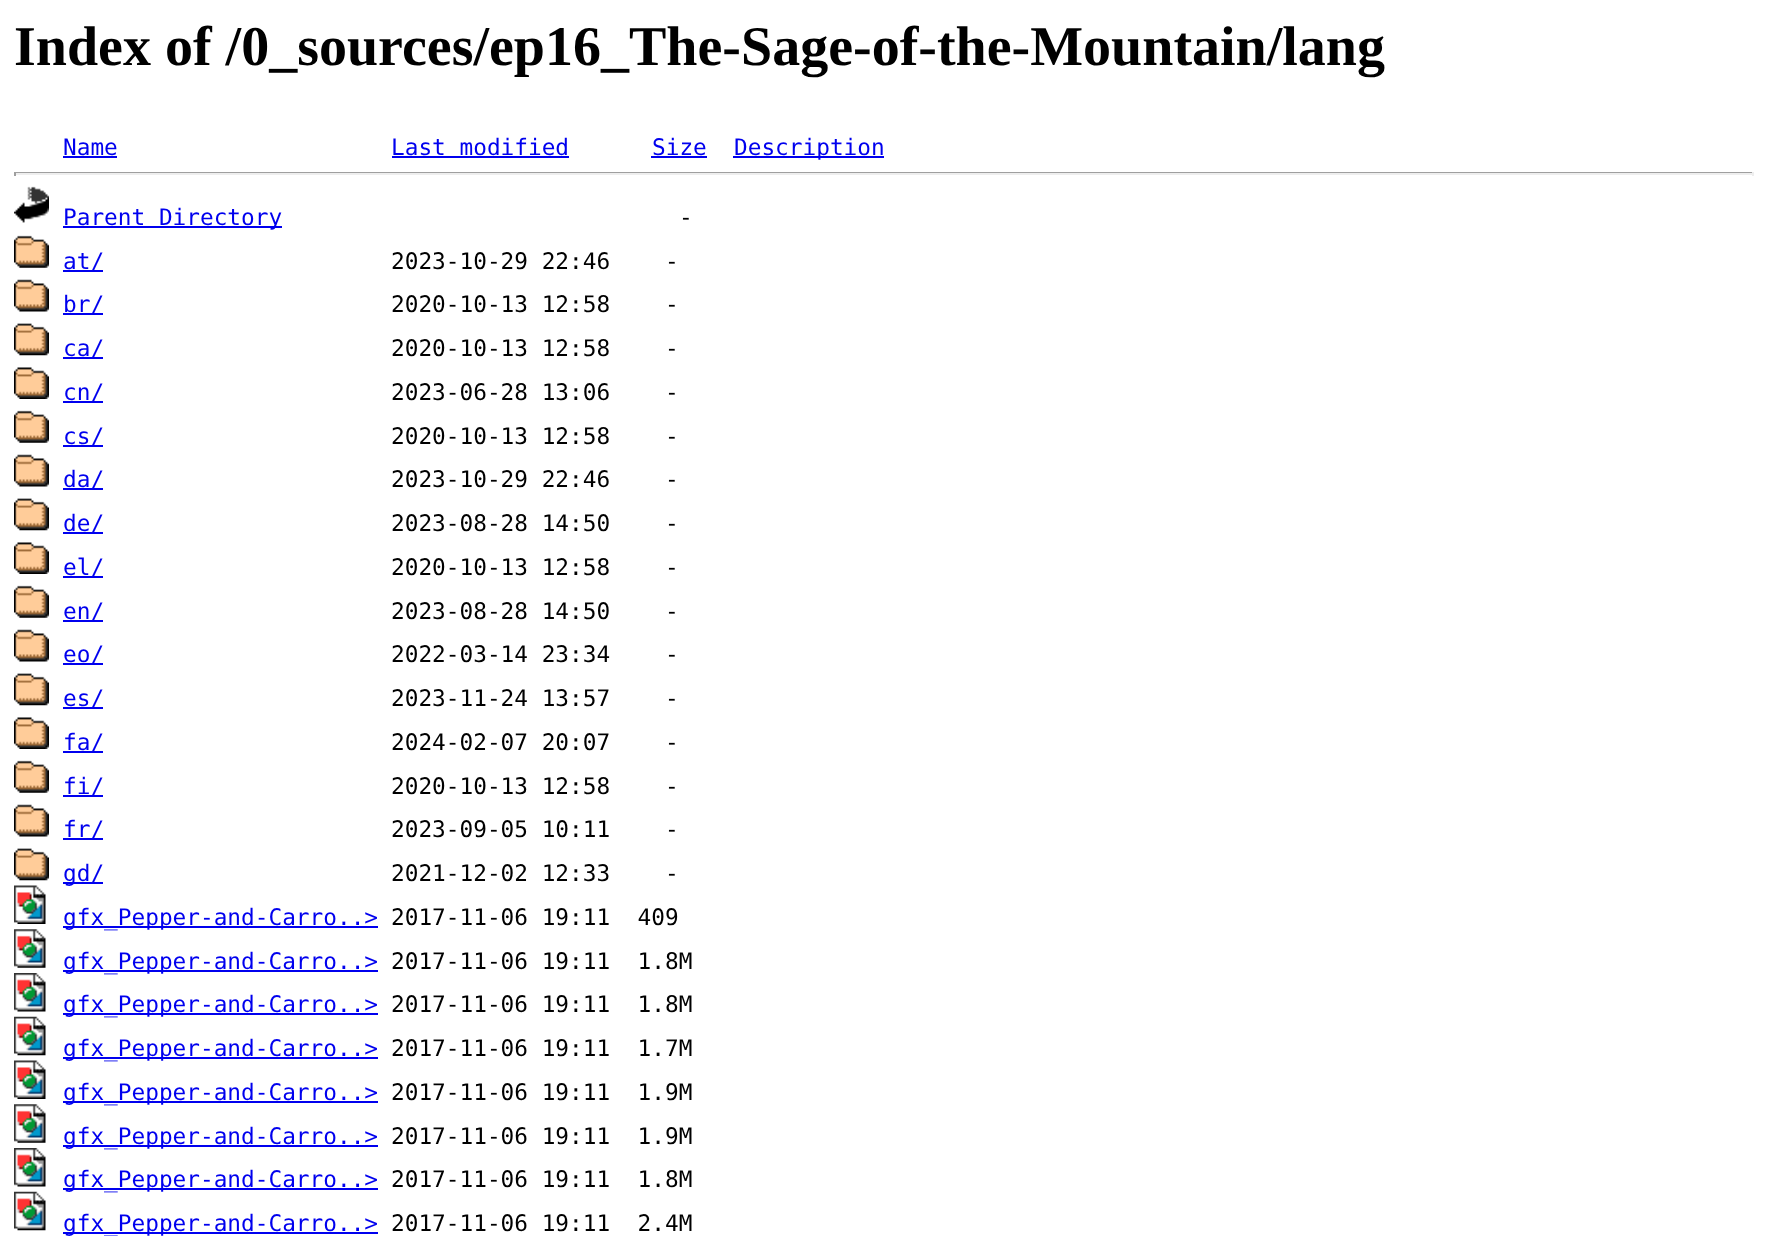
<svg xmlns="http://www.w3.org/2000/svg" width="1767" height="1236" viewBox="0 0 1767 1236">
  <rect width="100%" height="100%" fill="#ffffff"/>
  <text x="14" y="65" font-family="Liberation Serif" font-size="56" font-weight="bold" fill="#000000">Index of /0_sources/ep16_The-Sage-of-the-Mountain/lang</text>
  <text x="63" y="155" font-family="DejaVu Sans Mono" font-size="22.75" fill="#0000ee">Name</text>
  <rect x="63" y="156" width="54" height="2" fill="#0000ee"/>
  <text x="391" y="155" font-family="DejaVu Sans Mono" font-size="22.75" fill="#0000ee">Last modified</text>
  <rect x="392" y="156" width="177" height="2" fill="#0000ee"/>
  <text x="652" y="155" font-family="DejaVu Sans Mono" font-size="22.75" fill="#0000ee">Size</text>
  <rect x="651" y="156" width="56" height="2" fill="#0000ee"/>
  <rect x="733" y="156" width="151" height="2" fill="#0000ee"/>
  <text x="734" y="155" font-family="DejaVu Sans Mono" font-size="22.75" fill="#0000ee">Description</text>
  <rect x="14" y="172" width="1740" height="1" fill="#9f9f9f"/>
  <rect x="1752" y="172" width="2" height="4" fill="#eeeeee"/>
  <rect x="14" y="173" width="1740" height="2" fill="#eeeeee"/>
  <rect x="14" y="172" width="2" height="4" fill="#9f9f9f"/>
  <image x="14" y="186" width="35" height="37" href="img1.png"/>
  <rect x="63" y="226" width="219" height="2" fill="#0000ee"/>
  <text x="63" y="225" font-family="DejaVu Sans Mono" font-size="22.75" fill="#0000ee">Parent Directory</text>
  <text x="679" y="225" font-family="DejaVu Sans Mono" font-size="22.75" fill="#000000">-</text>
  <image x="14" y="235" width="35" height="33" href="img2.png"/>
  <rect x="63" y="270" width="40" height="2" fill="#0000ee"/>
  <text x="63" y="269" font-family="DejaVu Sans Mono" font-size="22.75" fill="#0000ee">at/</text>
  <text x="391" y="269" font-family="DejaVu Sans Mono" font-size="22.75" fill="#000000" xml:space="preserve">2023-10-29 22:46    -</text>
  <image x="14" y="279" width="35" height="33" href="img3.png"/>
  <rect x="63" y="313" width="40" height="2" fill="#0000ee"/>
  <text x="63" y="312" font-family="DejaVu Sans Mono" font-size="22.75" fill="#0000ee">br/</text>
  <text x="391" y="312" font-family="DejaVu Sans Mono" font-size="22.75" fill="#000000" xml:space="preserve">2020-10-13 12:58    -</text>
  <image x="14" y="323" width="35" height="33" href="img4.png"/>
  <rect x="63" y="357" width="40" height="2" fill="#0000ee"/>
  <text x="63" y="356" font-family="DejaVu Sans Mono" font-size="22.75" fill="#0000ee">ca/</text>
  <text x="391" y="356" font-family="DejaVu Sans Mono" font-size="22.75" fill="#000000" xml:space="preserve">2020-10-13 12:58    -</text>
  <image x="14" y="367" width="35" height="32" href="img5.png"/>
  <rect x="63" y="401" width="40" height="2" fill="#0000ee"/>
  <text x="63" y="400" font-family="DejaVu Sans Mono" font-size="22.75" fill="#0000ee">cn/</text>
  <text x="391" y="400" font-family="DejaVu Sans Mono" font-size="22.75" fill="#000000" xml:space="preserve">2023-06-28 13:06    -</text>
  <image x="14" y="410" width="35" height="33" href="img2.png"/>
  <rect x="63" y="445" width="40" height="2" fill="#0000ee"/>
  <text x="63" y="444" font-family="DejaVu Sans Mono" font-size="22.75" fill="#0000ee">cs/</text>
  <text x="391" y="444" font-family="DejaVu Sans Mono" font-size="22.75" fill="#000000" xml:space="preserve">2020-10-13 12:58    -</text>
  <image x="14" y="454" width="35" height="33" href="img3.png"/>
  <rect x="63" y="488" width="40" height="2" fill="#0000ee"/>
  <text x="63" y="487" font-family="DejaVu Sans Mono" font-size="22.75" fill="#0000ee">da/</text>
  <text x="391" y="487" font-family="DejaVu Sans Mono" font-size="22.75" fill="#000000" xml:space="preserve">2023-10-29 22:46    -</text>
  <image x="14" y="498" width="35" height="33" href="img4.png"/>
  <rect x="63" y="532" width="40" height="2" fill="#0000ee"/>
  <text x="63" y="531" font-family="DejaVu Sans Mono" font-size="22.75" fill="#0000ee">de/</text>
  <text x="391" y="531" font-family="DejaVu Sans Mono" font-size="22.75" fill="#000000" xml:space="preserve">2023-08-28 14:50    -</text>
  <image x="14" y="542" width="35" height="32" href="img5.png"/>
  <rect x="63" y="576" width="40" height="2" fill="#0000ee"/>
  <text x="63" y="575" font-family="DejaVu Sans Mono" font-size="22.75" fill="#0000ee">el/</text>
  <text x="391" y="575" font-family="DejaVu Sans Mono" font-size="22.75" fill="#000000" xml:space="preserve">2020-10-13 12:58    -</text>
  <image x="14" y="585" width="35" height="33" href="img2.png"/>
  <rect x="63" y="620" width="40" height="2" fill="#0000ee"/>
  <text x="63" y="619" font-family="DejaVu Sans Mono" font-size="22.75" fill="#0000ee">en/</text>
  <text x="391" y="619" font-family="DejaVu Sans Mono" font-size="22.75" fill="#000000" xml:space="preserve">2023-08-28 14:50    -</text>
  <image x="14" y="629" width="35" height="33" href="img3.png"/>
  <rect x="63" y="663" width="40" height="2" fill="#0000ee"/>
  <text x="63" y="662" font-family="DejaVu Sans Mono" font-size="22.75" fill="#0000ee">eo/</text>
  <text x="391" y="662" font-family="DejaVu Sans Mono" font-size="22.75" fill="#000000" xml:space="preserve">2022-03-14 23:34    -</text>
  <image x="14" y="673" width="35" height="33" href="img4.png"/>
  <rect x="63" y="707" width="40" height="2" fill="#0000ee"/>
  <text x="63" y="706" font-family="DejaVu Sans Mono" font-size="22.75" fill="#0000ee">es/</text>
  <text x="391" y="706" font-family="DejaVu Sans Mono" font-size="22.75" fill="#000000" xml:space="preserve">2023-11-24 13:57    -</text>
  <image x="14" y="717" width="35" height="32" href="img5.png"/>
  <rect x="63" y="751" width="40" height="2" fill="#0000ee"/>
  <text x="63" y="750" font-family="DejaVu Sans Mono" font-size="22.75" fill="#0000ee">fa/</text>
  <text x="391" y="750" font-family="DejaVu Sans Mono" font-size="22.75" fill="#000000" xml:space="preserve">2024-02-07 20:07    -</text>
  <image x="14" y="760" width="35" height="33" href="img2.png"/>
  <rect x="63" y="795" width="40" height="2" fill="#0000ee"/>
  <text x="63" y="794" font-family="DejaVu Sans Mono" font-size="22.75" fill="#0000ee">fi/</text>
  <text x="391" y="794" font-family="DejaVu Sans Mono" font-size="22.75" fill="#000000" xml:space="preserve">2020-10-13 12:58    -</text>
  <image x="14" y="804" width="35" height="33" href="img3.png"/>
  <rect x="63" y="838" width="40" height="2" fill="#0000ee"/>
  <text x="63" y="837" font-family="DejaVu Sans Mono" font-size="22.75" fill="#0000ee">fr/</text>
  <text x="391" y="837" font-family="DejaVu Sans Mono" font-size="22.75" fill="#000000" xml:space="preserve">2023-09-05 10:11    -</text>
  <image x="14" y="848" width="35" height="33" href="img4.png"/>
  <rect x="63" y="882" width="40" height="2" fill="#0000ee"/>
  <text x="63" y="881" font-family="DejaVu Sans Mono" font-size="22.75" fill="#0000ee">gd/</text>
  <text x="391" y="881" font-family="DejaVu Sans Mono" font-size="22.75" fill="#000000" xml:space="preserve">2021-12-02 12:33    -</text>
  <image x="14" y="885" width="32" height="39" href="img6.png"/>
  <rect x="63" y="926" width="315" height="2" fill="#0000ee"/>
  <text x="63" y="925" font-family="DejaVu Sans Mono" font-size="22.75" fill="#0000ee">gfx_Pepper-and-Carro..&gt;</text>
  <text x="391" y="925" font-family="DejaVu Sans Mono" font-size="22.75" fill="#000000" xml:space="preserve">2017-11-06 19:11  409</text>
  <image x="14" y="929" width="32" height="39" href="img7.png"/>
  <rect x="63" y="970" width="315" height="2" fill="#0000ee"/>
  <text x="63" y="969" font-family="DejaVu Sans Mono" font-size="22.75" fill="#0000ee">gfx_Pepper-and-Carro..&gt;</text>
  <text x="391" y="969" font-family="DejaVu Sans Mono" font-size="22.75" fill="#000000" xml:space="preserve">2017-11-06 19:11  1.8M</text>
  <image x="14" y="973" width="32" height="39" href="img8.png"/>
  <rect x="63" y="1013" width="315" height="2" fill="#0000ee"/>
  <text x="63" y="1012" font-family="DejaVu Sans Mono" font-size="22.75" fill="#0000ee">gfx_Pepper-and-Carro..&gt;</text>
  <text x="391" y="1012" font-family="DejaVu Sans Mono" font-size="22.75" fill="#000000" xml:space="preserve">2017-11-06 19:11  1.8M</text>
  <image x="14" y="1016" width="32" height="40" href="img9.png"/>
  <rect x="63" y="1057" width="315" height="2" fill="#0000ee"/>
  <text x="63" y="1056" font-family="DejaVu Sans Mono" font-size="22.75" fill="#0000ee">gfx_Pepper-and-Carro..&gt;</text>
  <text x="391" y="1056" font-family="DejaVu Sans Mono" font-size="22.75" fill="#000000" xml:space="preserve">2017-11-06 19:11  1.7M</text>
  <image x="14" y="1060" width="32" height="39" href="img6.png"/>
  <rect x="63" y="1101" width="315" height="2" fill="#0000ee"/>
  <text x="63" y="1100" font-family="DejaVu Sans Mono" font-size="22.75" fill="#0000ee">gfx_Pepper-and-Carro..&gt;</text>
  <text x="391" y="1100" font-family="DejaVu Sans Mono" font-size="22.75" fill="#000000" xml:space="preserve">2017-11-06 19:11  1.9M</text>
  <image x="14" y="1104" width="32" height="39" href="img7.png"/>
  <rect x="63" y="1145" width="315" height="2" fill="#0000ee"/>
  <text x="63" y="1144" font-family="DejaVu Sans Mono" font-size="22.75" fill="#0000ee">gfx_Pepper-and-Carro..&gt;</text>
  <text x="391" y="1144" font-family="DejaVu Sans Mono" font-size="22.75" fill="#000000" xml:space="preserve">2017-11-06 19:11  1.9M</text>
  <image x="14" y="1148" width="32" height="39" href="img8.png"/>
  <rect x="63" y="1188" width="315" height="2" fill="#0000ee"/>
  <text x="63" y="1187" font-family="DejaVu Sans Mono" font-size="22.75" fill="#0000ee">gfx_Pepper-and-Carro..&gt;</text>
  <text x="391" y="1187" font-family="DejaVu Sans Mono" font-size="22.75" fill="#000000" xml:space="preserve">2017-11-06 19:11  1.8M</text>
  <image x="14" y="1191" width="32" height="40" href="img9.png"/>
  <rect x="63" y="1232" width="315" height="2" fill="#0000ee"/>
  <text x="63" y="1231" font-family="DejaVu Sans Mono" font-size="22.75" fill="#0000ee">gfx_Pepper-and-Carro..&gt;</text>
  <text x="391" y="1231" font-family="DejaVu Sans Mono" font-size="22.75" fill="#000000" xml:space="preserve">2017-11-06 19:11  2.4M</text>
</svg>
